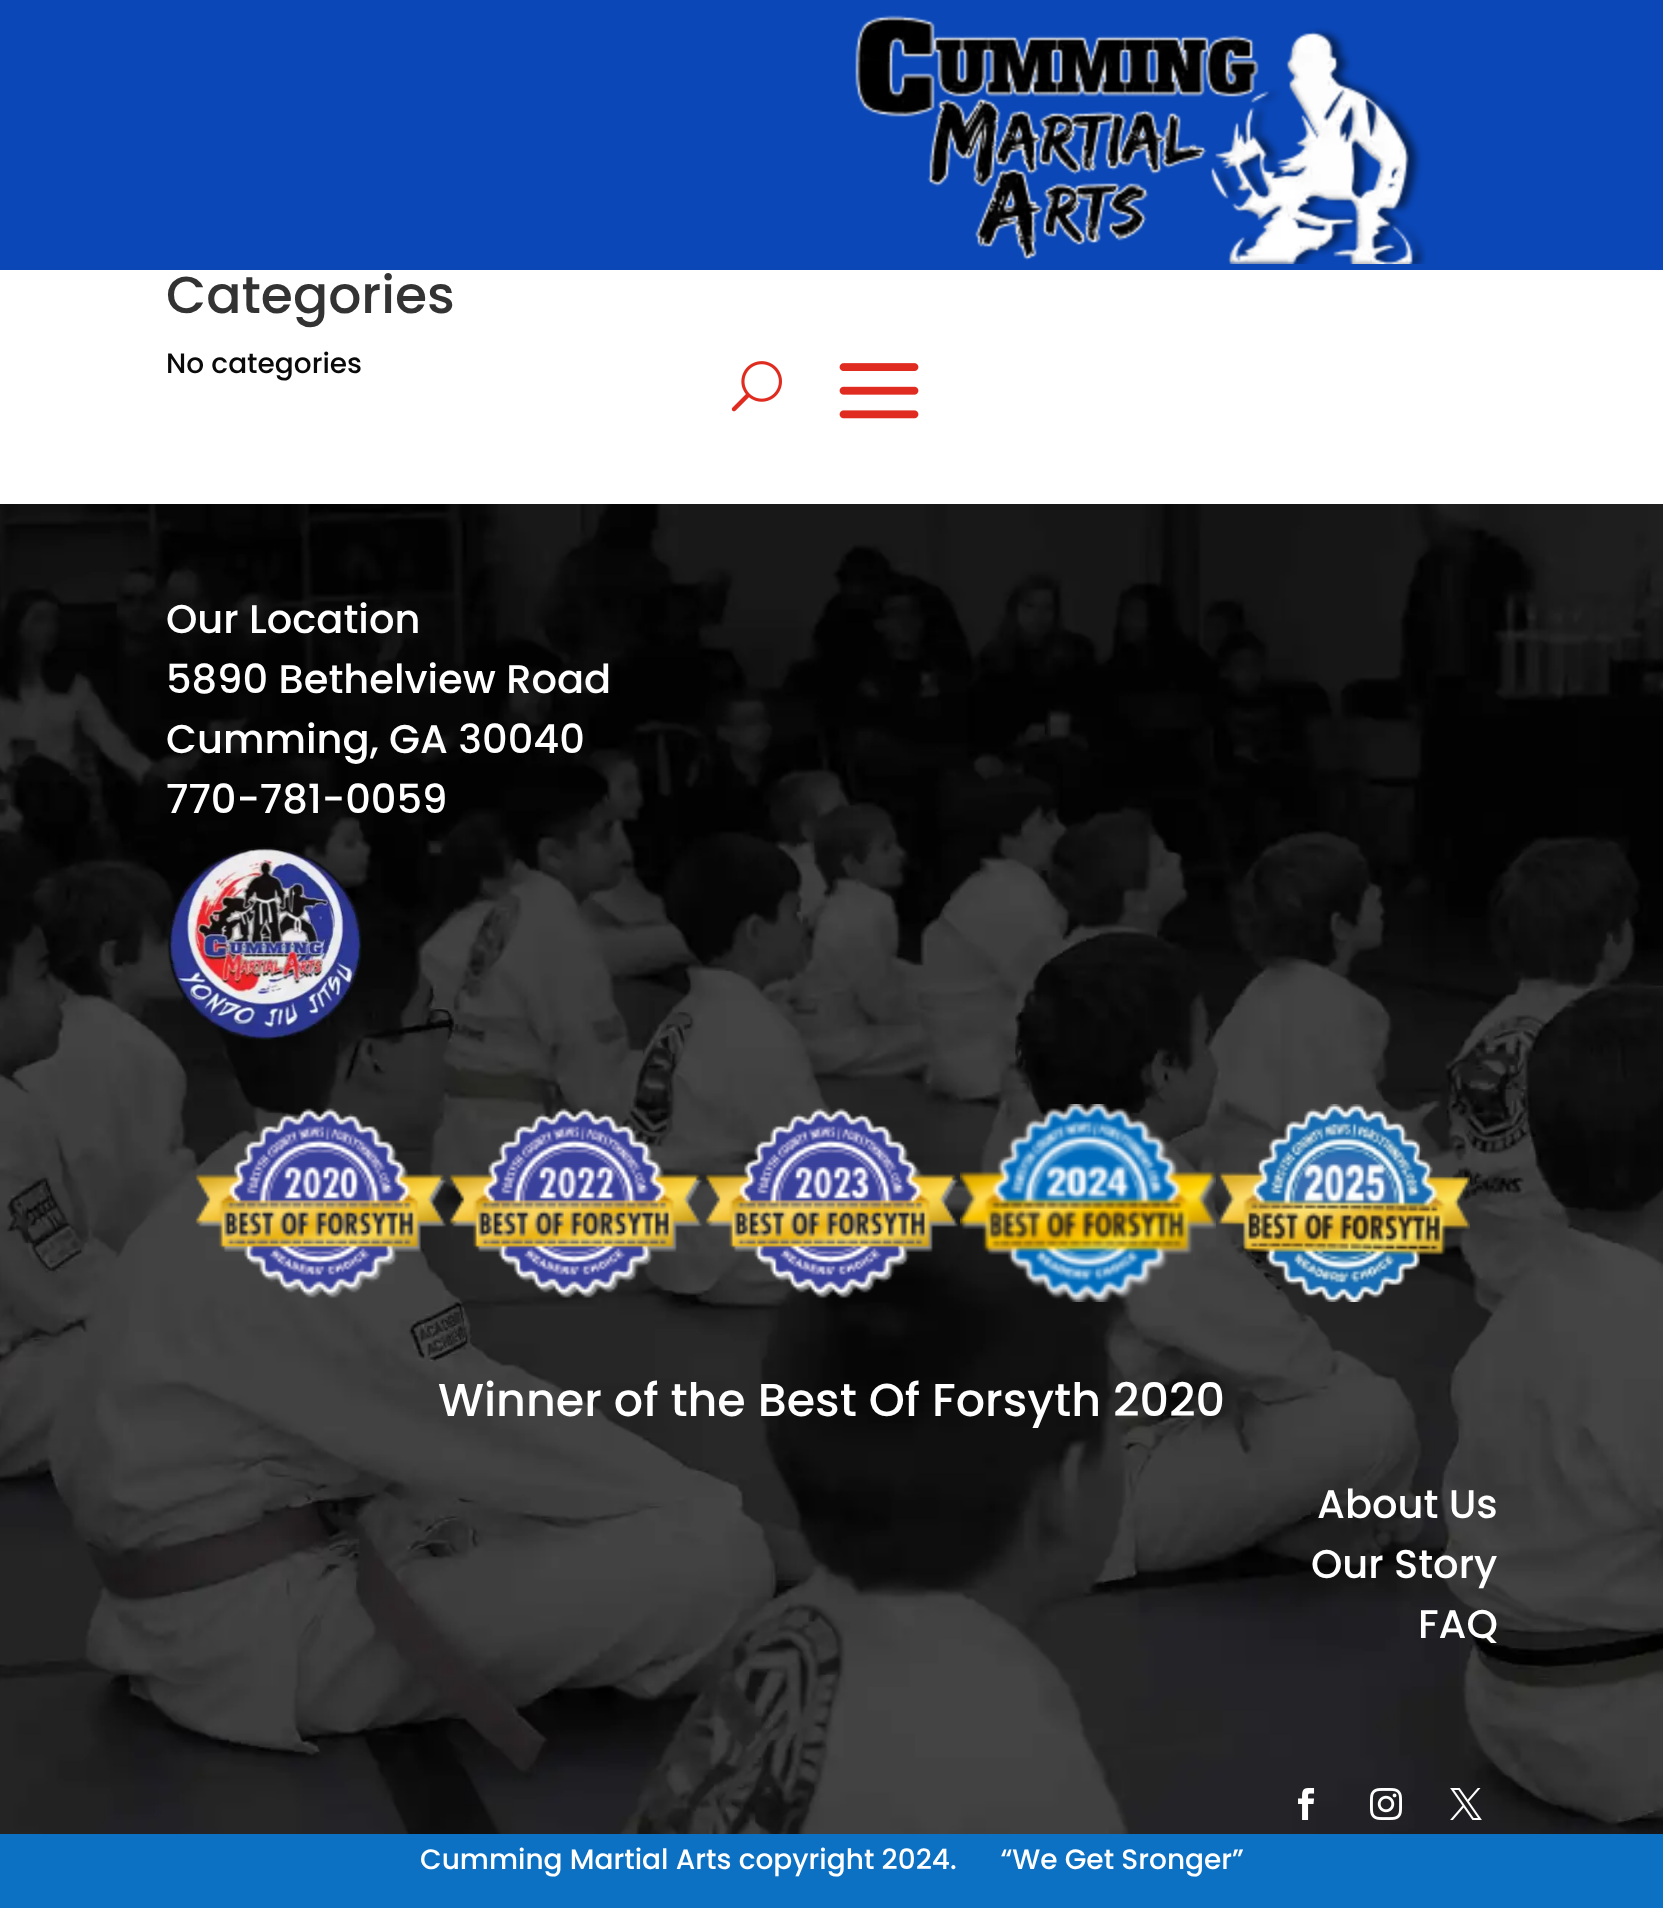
<svg xmlns="http://www.w3.org/2000/svg" width="1663" height="1908" viewBox="0 0 1663 1908">
  <rect width="100%" height="100%" fill="#ffffff"/>
  <rect x="0" y="0" width="1663" height="270" fill="#0b47b7"/>
  <image x="855" y="15" width="571" height="249" href="img1.png"/>
  <image x="731" y="361" width="51" height="51" href="img2.png"/>
  <image x="839" y="363" width="80" height="56" href="img3.png"/>
  <text x="166" y="313" font-family="Poppins" font-size="52" font-weight="500" fill="#333333">Categories</text>
  <text x="166" y="373" font-family="Poppins" font-size="28" font-weight="500" fill="#0a0a0a">No categories</text>
  <image x="0" y="504" width="1663" height="1330" href="img4.png"/>
  <text x="166" y="633" font-family="Poppins" font-size="40" font-weight="500" fill="#ffffff">Our Location</text>
  <text x="166" y="693" font-family="Poppins" font-size="40" font-weight="500" fill="#ffffff">5890 Bethelview Road</text>
  <text x="166" y="753" font-family="Poppins" font-size="40" font-weight="500" fill="#ffffff">Cumming, GA 30040</text>
  <text x="166" y="813" font-family="Poppins" font-size="40" font-weight="500" fill="#ffffff">770-781-0059</text>
  <image x="167" y="847" width="195" height="193" href="img5.png"/>
  <image x="195" y="1108" width="252" height="190" href="img6.png"/>
  <image x="449" y="1108" width="254" height="190" href="img7.png"/>
  <image x="705" y="1108" width="254" height="190" href="img8.png"/>
  <image x="960" y="1104" width="256" height="198" href="img9.png"/>
  <image x="1218" y="1104" width="252" height="198" href="img10.png"/>
  <text x="438" y="1416" font-family="Poppins" font-size="46" font-weight="500" fill="#ffffff">Winner of the Best Of Forsyth 2020</text>
  <text x="1317" y="1518" font-family="Poppins" font-size="40" font-weight="500" fill="#ffffff">About Us</text>
  <text x="1311" y="1578" font-family="Poppins" font-size="40" font-weight="500" fill="#ffffff">Our Story</text>
  <text x="1418" y="1638" font-family="Poppins" font-size="40" font-weight="500" fill="#ffffff">FAQ</text>
  <image x="1298" y="1788" width="17" height="32" href="img11.png"/>
  <image x="1370" y="1788" width="32" height="32" href="img12.png"/>
  <image x="1450" y="1788" width="32" height="32" href="img13.png"/>
  <rect x="0" y="1834" width="1663" height="74" fill="#0c71c3"/>
  <text x="420" y="1869" font-family="Poppins" font-size="28" font-weight="500" fill="#ffffff" xml:space="preserve">Cumming Martial Arts copyright 2024.      “We Get Sronger”</text>
</svg>
